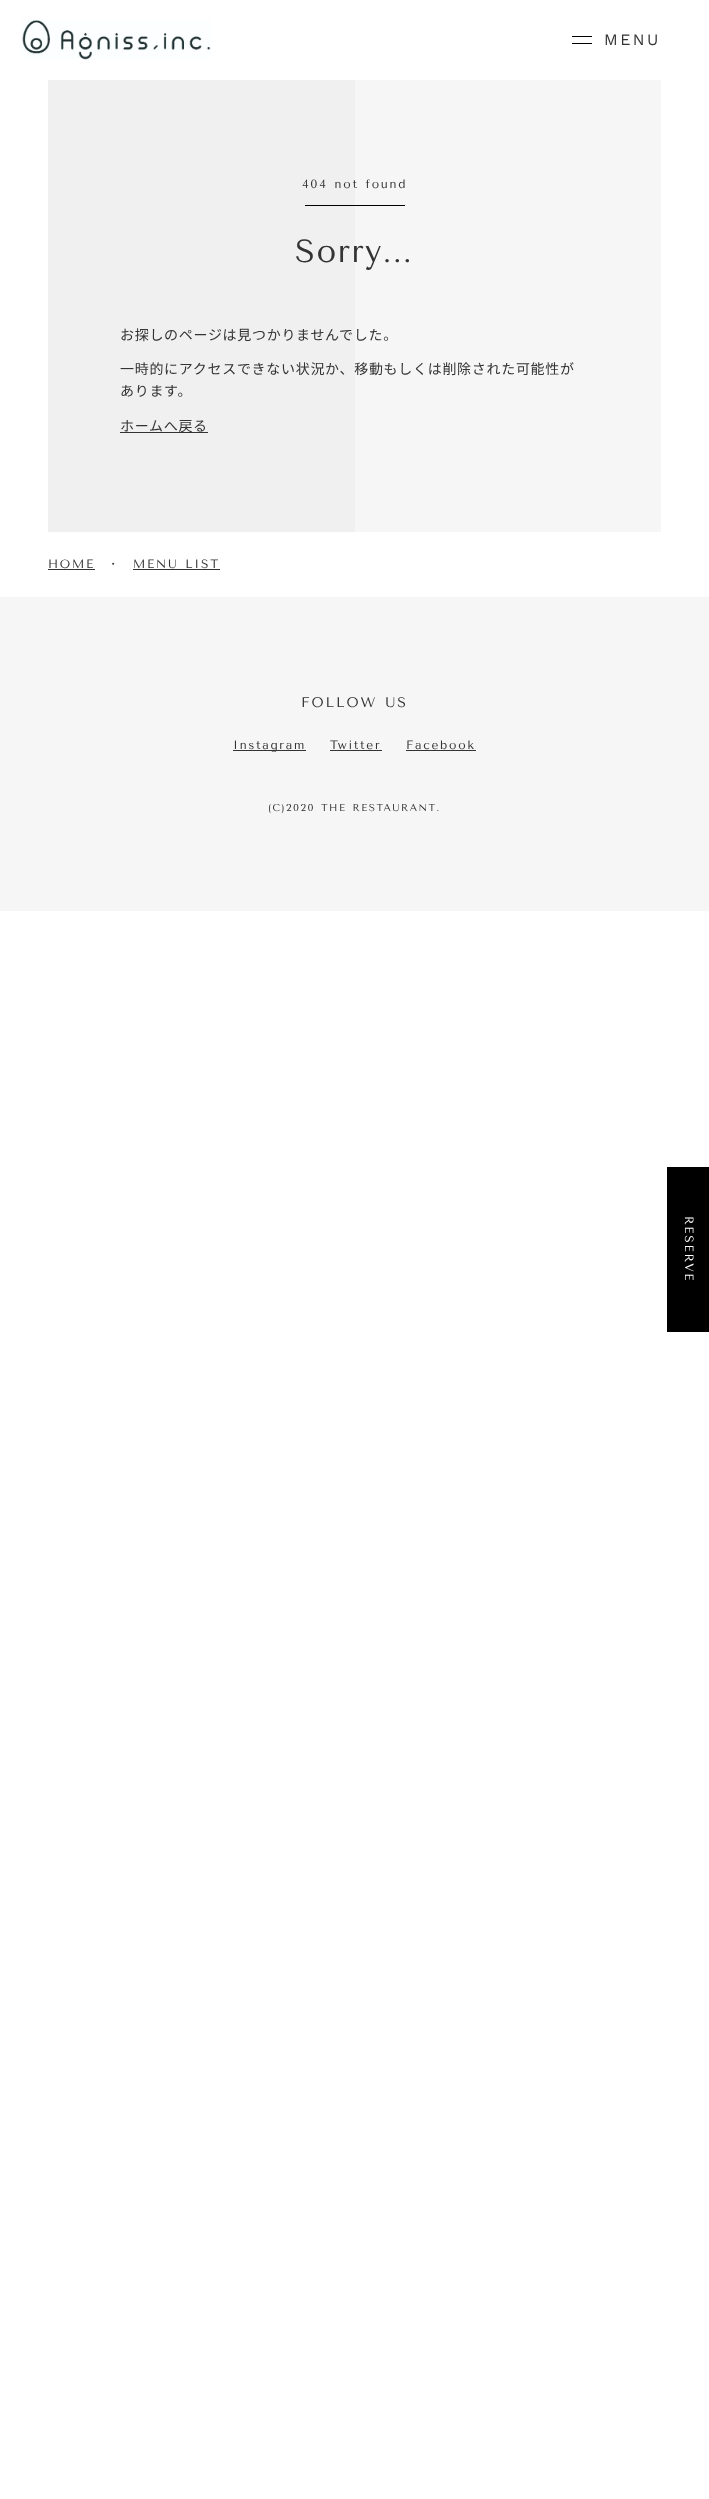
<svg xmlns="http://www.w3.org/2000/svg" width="709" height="2499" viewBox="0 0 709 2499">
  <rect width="100%" height="100%" fill="#ffffff"/>
  <image x="21" y="19" width="190" height="41" href="img1.png"/>
  <rect x="572" y="36" width="20" height="1" fill="#000000"/>
  <rect x="572" y="43" width="20" height="1" fill="#000000"/>
  <text x="604" y="45" font-family="Work Sans" font-size="16" letter-spacing="2.5" fill="#333333">MENU</text>
  <rect x="355" y="80" width="306" height="452" fill="#f6f6f6"/>
  <rect x="48" y="80" width="307" height="452" fill="#f0f0f0"/>
  <text x="302" y="188" word-spacing="1" font-family="Tenor Sans" font-size="12" letter-spacing="1.75" fill="#333333">404 not found</text>
  <rect x="305" y="205" width="100" height="1" fill="#000000"/>
  <text x="295" y="262" font-family="Tenor Sans" font-size="32" letter-spacing="1.5" fill="#333333">Sorry...</text>
  <text x="120" y="340" font-family="Noto Sans JP" font-size="14" letter-spacing="0.7" fill="#333333">お探しのページは見つかりませんでした。</text>
  <text x="120" y="374" font-family="Noto Sans JP" font-size="14" letter-spacing="0.7" fill="#333333">一時的にアクセスできない状況か、移動もしくは削除された可能性が</text>
  <text x="120" y="396" font-family="Noto Sans JP" font-size="14" letter-spacing="0.7" fill="#333333">あります。</text>
  <rect x="120" y="432" width="88" height="1" fill="#333333"/>
  <text x="120" y="431" font-family="Noto Sans JP" font-size="14" letter-spacing="0.7" fill="#333333">ホームへ戻る</text>
  <text x="48" y="568" font-family="Tenor Sans" font-size="12" letter-spacing="1.75" fill="#333333">HOME</text>
  <rect x="48" y="569" width="47" height="1" fill="#333333"/>
  <text x="107" y="568" font-family="WenQuanYi Zen Hei" font-size="12" font-weight="500" letter-spacing="1.75" fill="#333333">・</text>
  <text x="133" y="568" word-spacing="1" font-family="Tenor Sans" font-size="12" letter-spacing="1.75" fill="#333333">MENU LIST</text>
  <rect x="133" y="569" width="87" height="1" fill="#333333"/>
  <rect x="0" y="597" width="709" height="314" fill="#f6f6f6"/>
  <text x="301" y="707" word-spacing="1" font-family="Tenor Sans" font-size="14" letter-spacing="2" fill="#333333">FOLLOW US</text>
  <rect x="233" y="750" width="73" height="1" fill="#333333"/>
  <text x="233" y="749" font-family="Tenor Sans" font-size="12" letter-spacing="1.75" fill="#333333">Instagram</text>
  <text x="330" y="749" font-family="Tenor Sans" font-size="12" letter-spacing="1.75" fill="#333333">Twitter</text>
  <rect x="330" y="750" width="52" height="1" fill="#333333"/>
  <text x="406" y="749" font-family="Tenor Sans" font-size="12" letter-spacing="1.75" fill="#333333">Facebook</text>
  <rect x="406" y="750" width="70" height="1" fill="#333333"/>
  <text x="268" y="811" word-spacing="1" font-family="Tenor Sans" font-size="10" letter-spacing="1.5" fill="#333333">(C)2020 THE RESTAURANT.</text>
  <rect x="668" y="1168" width="41" height="163" fill="#000000"/>
  <rect x="667" y="1167" width="42" height="1" fill="#000000"/>
  <rect x="667" y="1331" width="42" height="1" fill="#000000"/>
  <rect x="667" y="1167" width="1" height="165" fill="#000000"/>
  <text x="685" y="1216" transform="rotate(90 685 1216)" font-family="Tenor Sans" font-size="12" letter-spacing="1.75" fill="#ffffff">RESERVE</text>
</svg>
